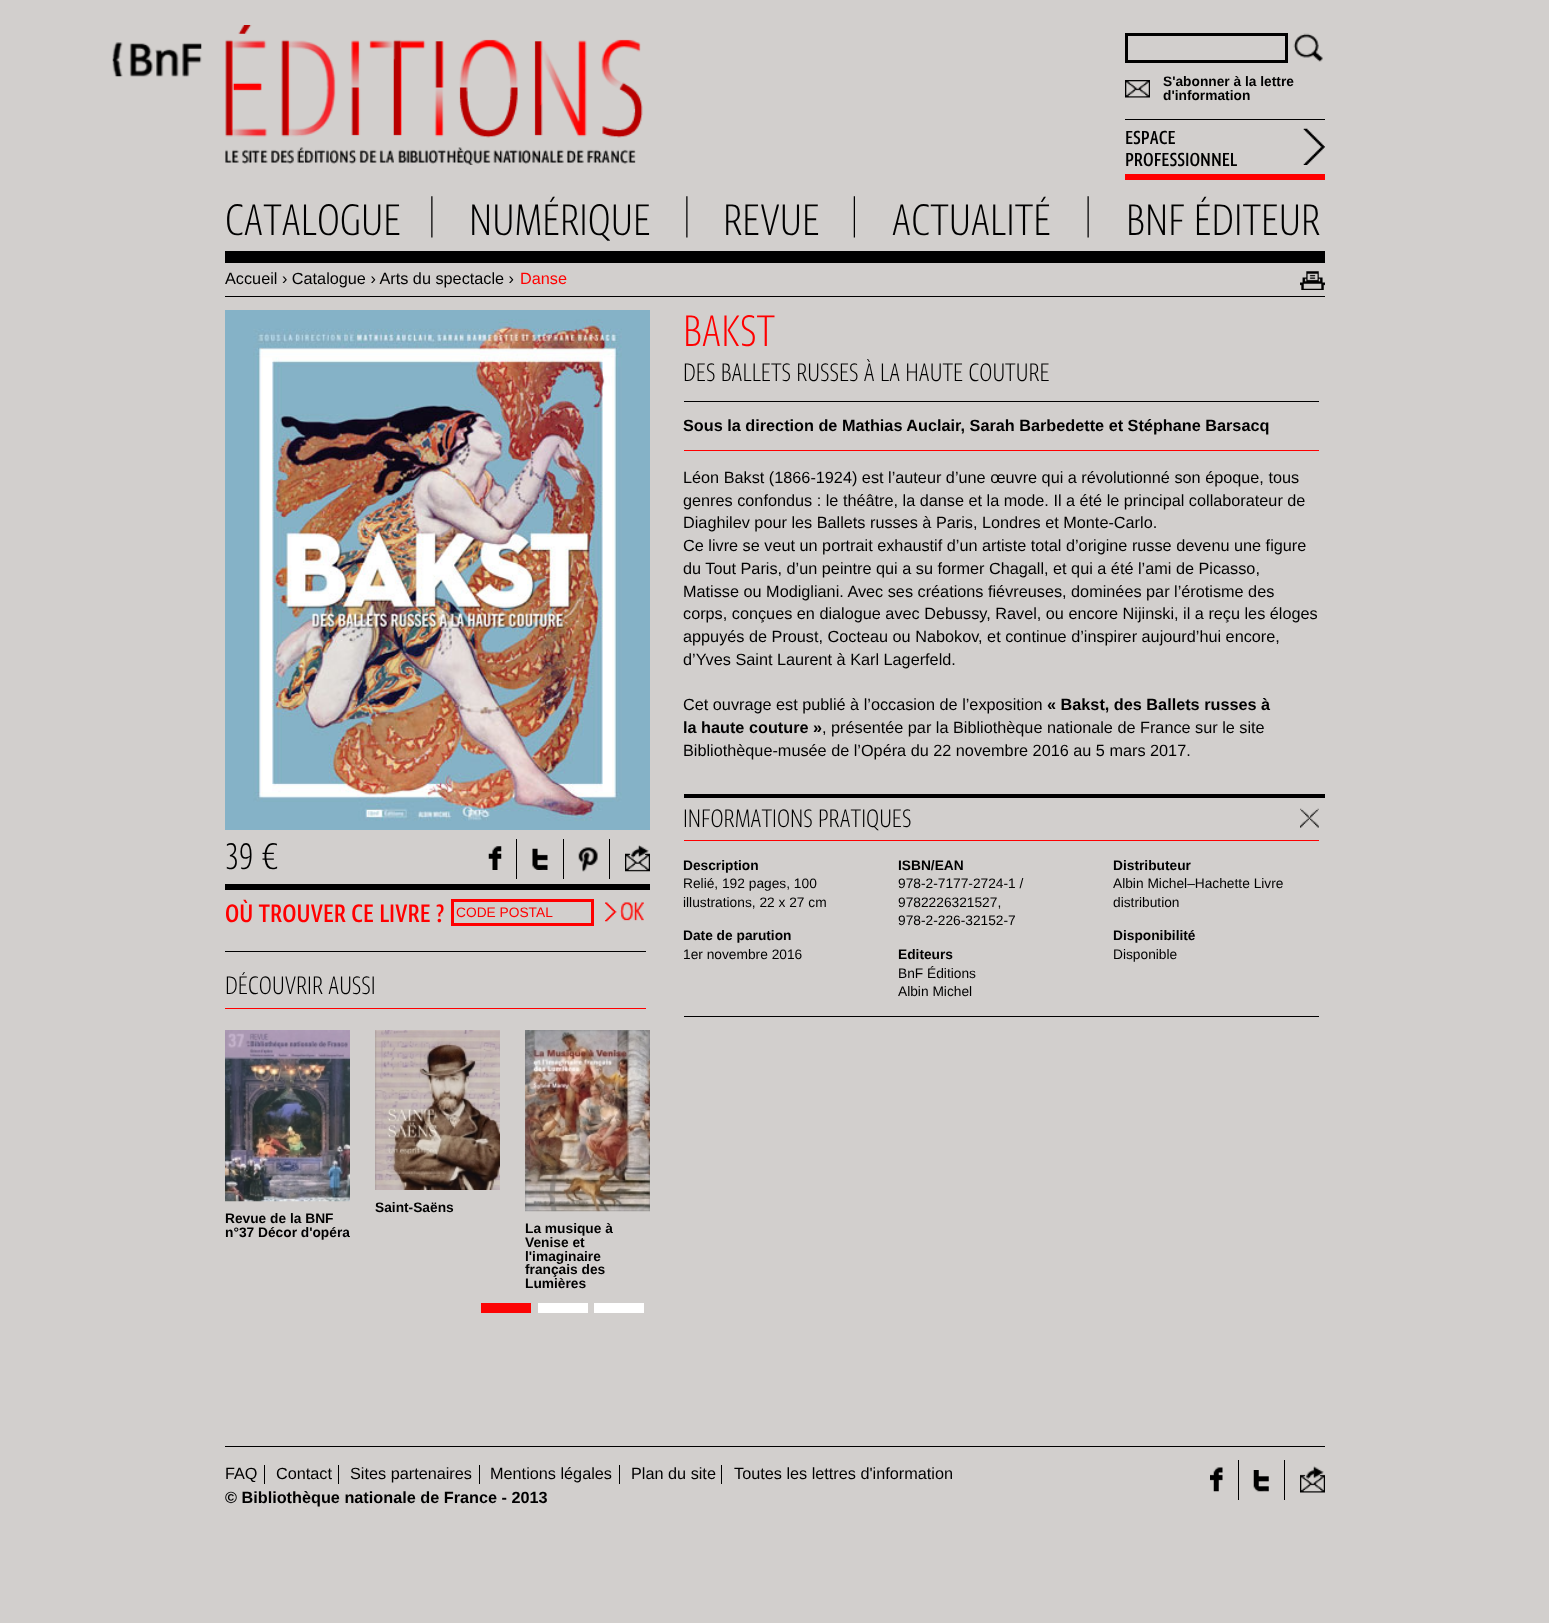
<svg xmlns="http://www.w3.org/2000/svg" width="1549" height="1623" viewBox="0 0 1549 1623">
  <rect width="100%" height="100%" fill="#d2cfcd"/>
  <image x="112" y="42" width="90" height="35" href="img1.png"/>
  <image x="225" y="25" width="418" height="140" href="img2.png"/>
  <rect x="1126.5" y="34.5" width="160" height="27" fill="none" stroke="#000000" stroke-width="3"/>
  <image x="1293" y="33" width="30" height="29" href="img3.png"/>
  <image x="1125" y="80" width="25" height="18" href="img4.png"/>
  <text x="1163" y="86" font-family="Liberation Sans" font-size="13.75" font-weight="bold" fill="#000000">S'abonner à la lettre</text>
  <text x="1163" y="100" font-family="Liberation Sans" font-size="13.75" font-weight="bold" fill="#000000">d'information</text>
  <image x="1303" y="128" width="22" height="37" href="img5.png"/>
  <rect x="1125" y="119" width="200" height="1" fill="#000000"/>
  <rect x="1125" y="174" width="200" height="6" fill="#ff0000"/>
  <text x="1125" y="144" font-family="'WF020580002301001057'" font-size="22.5" font-weight="500" fill="#000000">ESPACE</text>
  <text x="1125" y="166" font-family="'WF020580002301001057'" font-size="22.5" font-weight="500" fill="#000000">PROFESSIONNEL</text>
  <rect x="225" y="251" width="1100" height="12" fill="#000000"/>
  <image x="431" y="196" width="2" height="42" href="img6.png"/>
  <text x="225" y="235" font-family="'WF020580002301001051'" font-size="52.5" font-weight="200" fill="#000000">CATALOGUE</text>
  <image x="686" y="196" width="2" height="42" href="img6.png"/>
  <text x="469" y="235" font-family="'WF020580002301001051'" font-size="52.5" font-weight="200" fill="#000000">NUMÉRIQUE</text>
  <image x="853" y="196" width="2" height="42" href="img7.png"/>
  <text x="723" y="235" font-family="'WF020580002301001051'" font-size="52.5" font-weight="200" fill="#000000">REVUE</text>
  <image x="1087" y="196" width="2" height="42" href="img8.png"/>
  <text x="892" y="235" font-family="'WF020580002301001051'" font-size="52.5" font-weight="200" fill="#000000">ACTUALITÉ</text>
  <text x="1126" y="235" font-family="'WF020580002301001051'" font-size="52.5" font-weight="200" fill="#000000">BNF ÉDITEUR</text>
  <rect x="225" y="296" width="1100" height="1" fill="#000000"/>
  <text x="225" y="284" font-family="Liberation Sans" font-size="16.25" fill="#000000">Accueil › Catalogue › Arts du spectacle ›</text>
  <text x="520" y="284" font-family="Liberation Sans" font-size="16.25" fill="#ff0000">Danse</text>
  <image x="1300" y="271" width="25" height="19" href="img9.png"/>
  <text x="683" y="346" font-family="'WF020580002301001051'" font-size="52.5" font-weight="200" fill="#ff0000">BAKST</text>
  <text x="683" y="381" font-family="'WF020580002301001051'" font-size="30" font-weight="200" fill="#000000">DES BALLETS RUSSES À LA HAUTE COUTURE</text>
  <rect x="684" y="401" width="635" height="1" fill="#000000"/>
  <text x="683" y="431" font-family="Liberation Sans" font-size="16.25" font-weight="bold" fill="#000000">Sous la direction de Mathias Auclair, Sarah Barbedette et Stéphane Barsacq</text>
  <rect x="684" y="450" width="635" height="1" fill="#ff0000"/>
  <text x="683" y="483" font-family="Liberation Sans" font-size="16.25" fill="#000000">Léon Bakst (1866-1924) est l’auteur d’une œuvre qui a révolutionné son époque, tous</text>
  <text x="683" y="506" font-family="Liberation Sans" font-size="16.25" fill="#000000">genres confondus : le théâtre, la danse et la mode. Il a été le principal collaborateur de</text>
  <text x="683" y="528" font-family="Liberation Sans" font-size="16.25" fill="#000000">Diaghilev pour les Ballets russes à Paris, Londres et Monte-Carlo.</text>
  <text x="683" y="551" font-family="Liberation Sans" font-size="16.25" fill="#000000">Ce livre se veut un portrait exhaustif d’un artiste total d’origine russe devenu une figure</text>
  <text x="683" y="574" font-family="Liberation Sans" font-size="16.25" fill="#000000">du Tout Paris, d’un peintre qui a su former Chagall, et qui a été l’ami de Picasso,</text>
  <text x="683" y="597" font-family="Liberation Sans" font-size="16.25" fill="#000000">Matisse ou Modigliani. Avec ses créations fiévreuses, dominées par l’érotisme des</text>
  <text x="683" y="619" font-family="Liberation Sans" font-size="16.25" fill="#000000">corps, conçues en dialogue avec Debussy, Ravel, ou encore Nijinski, il a reçu les éloges</text>
  <text x="683" y="642" font-family="Liberation Sans" font-size="16.25" fill="#000000">appuyés de Proust, Cocteau ou Nabokov, et continue d’inspirer aujourd’hui encore,</text>
  <text x="683" y="665" font-family="Liberation Sans" font-size="16.25" fill="#000000">d’Yves Saint Laurent à Karl Lagerfeld.</text>
  <text x="683" y="710" font-family="Liberation Sans" font-size="16.25" fill="#000000">Cet ouvrage est publié à l’occasion de l’exposition</text>
  <text x="1047" y="710" font-family="Liberation Sans" font-size="16.25" font-weight="bold" fill="#000000">« Bakst, des Ballets russes à</text>
  <text x="683" y="733" font-family="Liberation Sans" font-size="16.25" font-weight="bold" fill="#000000">la haute couture »</text>
  <text x="822" y="733" font-family="Liberation Sans" font-size="16.25" fill="#000000">, présentée par la Bibliothèque nationale de France sur le site</text>
  <text x="683" y="756" font-family="Liberation Sans" font-size="16.25" fill="#000000">Bibliothèque-musée de l’Opéra du 22 novembre 2016 au 5 mars 2017.</text>
  <rect x="684" y="794" width="641" height="4" fill="#000000"/>
  <image x="1300" y="808" width="19" height="20" href="img10.png"/>
  <text x="683" y="827" font-family="'WF020580002301001051'" font-size="30" font-weight="200" fill="#000000">INFORMATIONS PRATIQUES</text>
  <rect x="684" y="840" width="635" height="1" fill="#fe0000"/>
  <rect x="684" y="1016" width="635" height="1" fill="#000000"/>
  <text x="683" y="870" font-family="Liberation Sans" font-size="13.75" font-weight="bold" fill="#000000">Description</text>
  <text x="683" y="888" font-family="Liberation Sans" font-size="13.75" fill="#000000">Relié, 192 pages, 100</text>
  <text x="683" y="907" font-family="Liberation Sans" font-size="13.75" fill="#000000">illustrations, 22 x 27 cm</text>
  <text x="683" y="940" font-family="Liberation Sans" font-size="13.75" font-weight="bold" fill="#000000">Date de parution</text>
  <text x="683" y="959" font-family="Liberation Sans" font-size="13.75" fill="#000000">1er novembre 2016</text>
  <text x="898" y="870" font-family="Liberation Sans" font-size="13.75" font-weight="bold" fill="#000000">ISBN/EAN</text>
  <text x="898" y="888" font-family="Liberation Sans" font-size="13.75" fill="#000000">978-2-7177-2724-1 /</text>
  <text x="898" y="907" font-family="Liberation Sans" font-size="13.75" fill="#000000">9782226321527,</text>
  <text x="898" y="925" font-family="Liberation Sans" font-size="13.75" fill="#000000">978-2-226-32152-7</text>
  <text x="898" y="959" font-family="Liberation Sans" font-size="13.75" font-weight="bold" fill="#000000">Editeurs</text>
  <text x="898" y="978" font-family="Liberation Sans" font-size="13.75" fill="#000000">BnF Éditions</text>
  <text x="898" y="996" font-family="Liberation Sans" font-size="13.75" fill="#000000">Albin Michel</text>
  <text x="1113" y="870" font-family="Liberation Sans" font-size="13.75" font-weight="bold" fill="#000000">Distributeur</text>
  <text x="1113" y="888" font-family="Liberation Sans" font-size="13.75" fill="#000000">Albin Michel–Hachette Livre</text>
  <text x="1113" y="907" font-family="Liberation Sans" font-size="13.75" fill="#000000">distribution</text>
  <text x="1113" y="940" font-family="Liberation Sans" font-size="13.75" font-weight="bold" fill="#000000">Disponibilité</text>
  <text x="1113" y="959" font-family="Liberation Sans" font-size="13.75" fill="#000000">Disponible</text>
  <image x="225" y="310" width="425" height="520" href="img11.png"/>
  <rect x="225" y="884" width="425" height="6" fill="#000000"/>
  <text x="225" y="869" font-family="'WF020580002301001051'" font-size="44" font-weight="200" fill="#000000">39 €</text>
  <image x="488" y="846" width="14" height="24" href="img12.png"/>
  <rect x="516" y="839" width="1" height="40" fill="#000000"/>
  <image x="532" y="848" width="16" height="22" href="img13.png"/>
  <rect x="563" y="839" width="1" height="40" fill="#000000"/>
  <image x="578" y="847" width="20" height="25" href="img14.png"/>
  <rect x="609" y="839" width="1" height="40" fill="#000000"/>
  <image x="625" y="845" width="25" height="27" href="img15.png"/>
  <text x="225" y="922" font-family="'WF020580002301001057'" font-size="30" font-weight="500" fill="#ff0000">OÙ TROUVER CE LIVRE ?</text>
  <rect x="452.5" y="900.5" width="140" height="24" fill="none" stroke="#ff0000" stroke-width="3"/>
  <text x="456" y="917" font-family="Liberation Sans" font-size="13.75" fill="#ff0000">CODE POSTAL</text>
  <image x="605" y="902" width="39" height="20" href="img16.png"/>
  <rect x="225" y="951" width="421" height="1" fill="#000000"/>
  <rect x="225" y="1008" width="421" height="1" fill="#ff0000"/>
  <text x="225" y="994" font-family="'WF020580002301001051'" font-size="30" font-weight="200" fill="#000000">DÉCOUVRIR AUSSI</text>
  <image x="375" y="1030" width="125" height="160" href="img17.png"/>
  <text x="375" y="1212" font-family="Liberation Sans" font-size="13.75" font-weight="bold" fill="#000000">Saint-Saëns</text>
  <image x="225" y="1030" width="125" height="172" href="img18.png"/>
  <text x="225" y="1223" font-family="Liberation Sans" font-size="13.75" font-weight="bold" fill="#000000">Revue de la BNF</text>
  <text x="225" y="1237" font-family="Liberation Sans" font-size="13.75" font-weight="bold" fill="#000000">n°37 Décor d'opéra</text>
  <image x="525" y="1030" width="125" height="182" href="img19.png"/>
  <text x="525" y="1233" font-family="Liberation Sans" font-size="13.75" font-weight="bold" fill="#000000">La musique à</text>
  <text x="525" y="1247" font-family="Liberation Sans" font-size="13.75" font-weight="bold" fill="#000000">Venise et</text>
  <text x="525" y="1261" font-family="Liberation Sans" font-size="13.75" font-weight="bold" fill="#000000">l'imaginaire</text>
  <text x="525" y="1274" font-family="Liberation Sans" font-size="13.75" font-weight="bold" fill="#000000">français des</text>
  <text x="525" y="1288" font-family="Liberation Sans" font-size="13.75" font-weight="bold" fill="#000000">Lumières</text>
  <rect x="481" y="1303" width="50" height="10" fill="#fc0404"/>
  <rect x="538" y="1303" width="50" height="10" fill="#ffffff"/>
  <rect x="594" y="1303" width="50" height="10" fill="#ffffff"/>
  <rect x="225" y="1446" width="1100" height="1" fill="#000000"/>
  <text x="225" y="1479" font-family="Liberation Sans" font-size="16.25" fill="#000000">FAQ</text>
  <rect x="264" y="1465" width="1" height="19" fill="#000000"/>
  <text x="276" y="1479" font-family="Liberation Sans" font-size="16.25" fill="#000000">Contact</text>
  <rect x="338" y="1465" width="1" height="19" fill="#000000"/>
  <text x="350" y="1479" font-family="Liberation Sans" font-size="16.25" fill="#000000">Sites partenaires</text>
  <rect x="479" y="1465" width="1" height="19" fill="#000000"/>
  <text x="490" y="1479" font-family="Liberation Sans" font-size="16.25" fill="#000000">Mentions légales</text>
  <rect x="619" y="1465" width="1" height="19" fill="#000000"/>
  <text x="631" y="1479" font-family="Liberation Sans" font-size="16.25" fill="#000000">Plan du site</text>
  <rect x="721" y="1465" width="1" height="19" fill="#000000"/>
  <text x="734" y="1479" font-family="Liberation Sans" font-size="16.25" fill="#000000">Toutes les lettres d'information</text>
  <text x="225" y="1503" font-family="Liberation Sans" font-size="16.25" font-weight="bold" fill="#000000">© Bibliothèque nationale de France - 2013</text>
  <image x="1210" y="1467" width="13" height="25" href="img20.png"/>
  <rect x="1238" y="1460" width="1" height="40" fill="#000000"/>
  <image x="1253" y="1470" width="16" height="22" href="img21.png"/>
  <rect x="1284" y="1460" width="1" height="40" fill="#000000"/>
  <image x="1300" y="1466" width="25" height="27" href="img22.png"/>
</svg>
